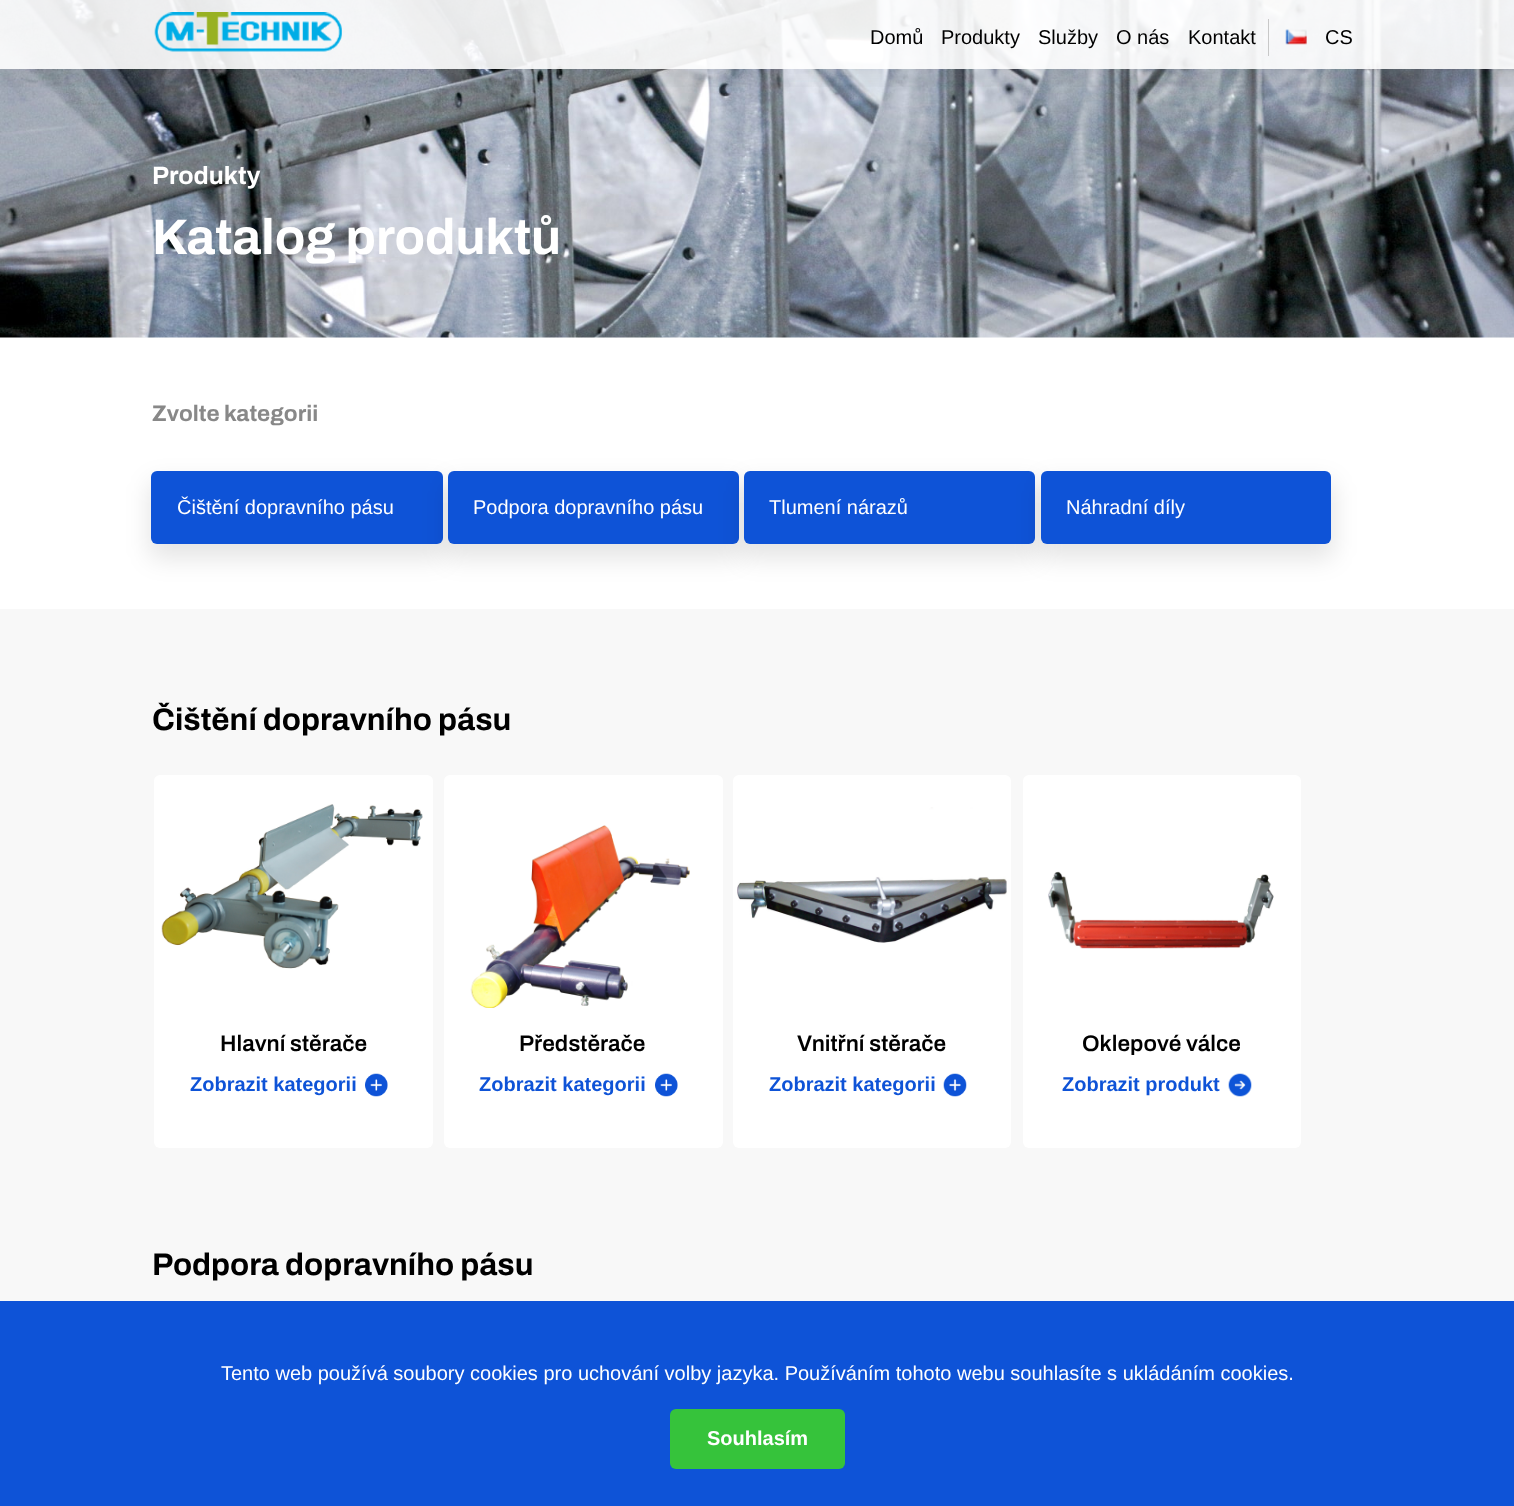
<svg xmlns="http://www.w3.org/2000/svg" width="1514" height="1506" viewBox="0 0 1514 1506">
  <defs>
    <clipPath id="clip1"><rect x="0" y="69" width="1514" height="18"/></clipPath>
    <filter id="blur1" x="-50%" y="-200%" width="200%" height="500%"><feGaussianBlur stdDeviation="12.5"/></filter>
  </defs>
  <rect width="100%" height="100%" fill="#ffffff"/>
  <image x="0" y="0" width="1514" height="338" href="img3.png"/>
  <g clip-path="url(#clip1)">
    <rect x="-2" y="10" width="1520" height="74" fill="#000000" fill-opacity="0.05" filter="url(#blur1)"/>
  </g>
  <rect x="0" y="0" width="1514" height="69" fill="#ffffff" fill-opacity="0.9"/>
  <image x="154" y="12" width="188" height="40" href="img1.png"/>
  <text x="870" y="44" font-family="Liberation Sans" font-size="20" fill="#000000">Domů</text>
  <text x="941" y="44" font-family="Liberation Sans" font-size="20" fill="#000000">Produkty</text>
  <text x="1038" y="44" font-family="Liberation Sans" font-size="20" fill="#000000">Služby</text>
  <text x="1116" y="44" font-family="Liberation Sans" font-size="20" fill="#000000">O nás</text>
  <text x="1188" y="44" font-family="Liberation Sans" font-size="20" fill="#000000">Kontakt</text>
  <rect x="1268" y="19" width="1" height="37" fill="#c8c8c8"/>
  <image x="1285" y="29" width="22" height="16" href="img2.png"/>
  <text x="1325" y="44" font-family="Liberation Sans" font-size="20" fill="#000000">CS</text>
  <rect x="0" y="1301" width="1514" height="205" fill="#0e53d7"/>
  <text x="221" y="1380" font-family="Liberation Sans" font-size="20" fill="#ffffff">Tento web používá soubory cookies pro uchování volby jazyka. Používáním tohoto webu souhlasíte s ukládáním cookies.</text>
  <rect x="670" y="1409" width="175" height="60" rx="6" fill="#36c33b"/>
  <text x="707" y="1445" font-family="Liberation Sans" font-size="20" font-weight="bold" fill="#ffffff">Souhlasím</text>
  <text x="152" y="184" font-family="Archivo" font-size="25" font-weight="bold" fill="#ffffff">Produkty</text>
  <text x="152" y="254" font-family="Archivo" font-size="50" font-weight="bold" fill="#ffffff">Katalog produktů</text>
  <text x="152" y="421" font-family="Archivo" font-size="22.5" font-weight="bold" fill="#888888">Zvolte kategorii</text>
  <rect x="149" y="481" width="296" height="78" rx="9" fill="#000000" fill-opacity="0.1" filter="url(#blur1)"/>
  <rect x="151" y="471" width="292" height="73" rx="6" fill="#0e53d7"/>
  <text x="177" y="514" font-family="Liberation Sans" font-size="20" fill="#ffffff">Čištění dopravního pásu</text>
  <rect x="445" y="481" width="296" height="78" rx="9" fill="#000000" fill-opacity="0.1" filter="url(#blur1)"/>
  <rect x="448" y="471" width="291" height="73" rx="6" fill="#0e53d7"/>
  <text x="473" y="514" font-family="Liberation Sans" font-size="20" fill="#ffffff">Podpora dopravního pásu</text>
  <rect x="741" y="481" width="297" height="78" rx="9" fill="#000000" fill-opacity="0.1" filter="url(#blur1)"/>
  <rect x="744" y="471" width="291" height="73" rx="6" fill="#0e53d7"/>
  <text x="769" y="514" font-family="Liberation Sans" font-size="20" fill="#ffffff">Tlumení nárazů</text>
  <rect x="1039" y="481" width="295" height="78" rx="9" fill="#000000" fill-opacity="0.1" filter="url(#blur1)"/>
  <rect x="1041" y="471" width="290" height="73" rx="6" fill="#0e53d7"/>
  <text x="1066" y="514" font-family="Liberation Sans" font-size="20" fill="#ffffff">Náhradní díly</text>
  <rect x="0" y="609" width="1514" height="692" fill="#f8f8f8"/>
  <text x="152" y="730" font-family="Archivo" font-size="31.25" font-weight="bold" fill="#000000">Čištění dopravního pásu</text>
  <rect x="154" y="775" width="279" height="373" rx="6" fill="#ffffff"/>
  <image x="161" y="804" width="262" height="165" href="img4.png"/>
  <text x="220" y="1051" font-family="Archivo" font-size="22.5" font-weight="600" fill="#000000">Hlavní stěrače</text>
  <text x="190" y="1091" font-family="Liberation Sans" font-size="20" font-weight="bold" fill="#0e53d7">Zobrazit kategorii</text>
  <image x="365" y="1073" width="23" height="24" href="img5.png"/>
  <rect x="444" y="775" width="279" height="373" rx="6" fill="#ffffff"/>
  <image x="470" y="825" width="220" height="183" href="img6.png"/>
  <text x="519" y="1051" font-family="Archivo" font-size="22.5" font-weight="600" fill="#000000">Předstěrače</text>
  <text x="479" y="1091" font-family="Liberation Sans" font-size="20" font-weight="bold" fill="#0e53d7">Zobrazit kategorii</text>
  <image x="655" y="1073" width="23" height="24" href="img5.png"/>
  <rect x="733" y="775" width="278" height="373" rx="6" fill="#ffffff"/>
  <image x="737" y="807" width="270" height="136" href="img7.png"/>
  <text x="797" y="1051" font-family="Archivo" font-size="22.5" font-weight="600" fill="#000000">Vnitřní stěrače</text>
  <text x="769" y="1091" font-family="Liberation Sans" font-size="20" font-weight="bold" fill="#0e53d7">Zobrazit kategorii</text>
  <image x="943" y="1073" width="24" height="24" href="img8.png"/>
  <rect x="1023" y="775" width="278" height="373" rx="6" fill="#ffffff"/>
  <image x="1048" y="871" width="226" height="78" href="img9.png"/>
  <text x="1082" y="1051" font-family="Archivo" font-size="22.5" font-weight="600" fill="#000000">Oklepové válce</text>
  <text x="1062" y="1091" font-family="Liberation Sans" font-size="20" font-weight="bold" fill="#0e53d7">Zobrazit produkt</text>
  <image x="1228" y="1073" width="24" height="24" href="img10.png"/>
  <text x="152" y="1275" font-family="Archivo" font-size="31.25" font-weight="bold" fill="#000000">Podpora dopravního pásu</text>
</svg>
